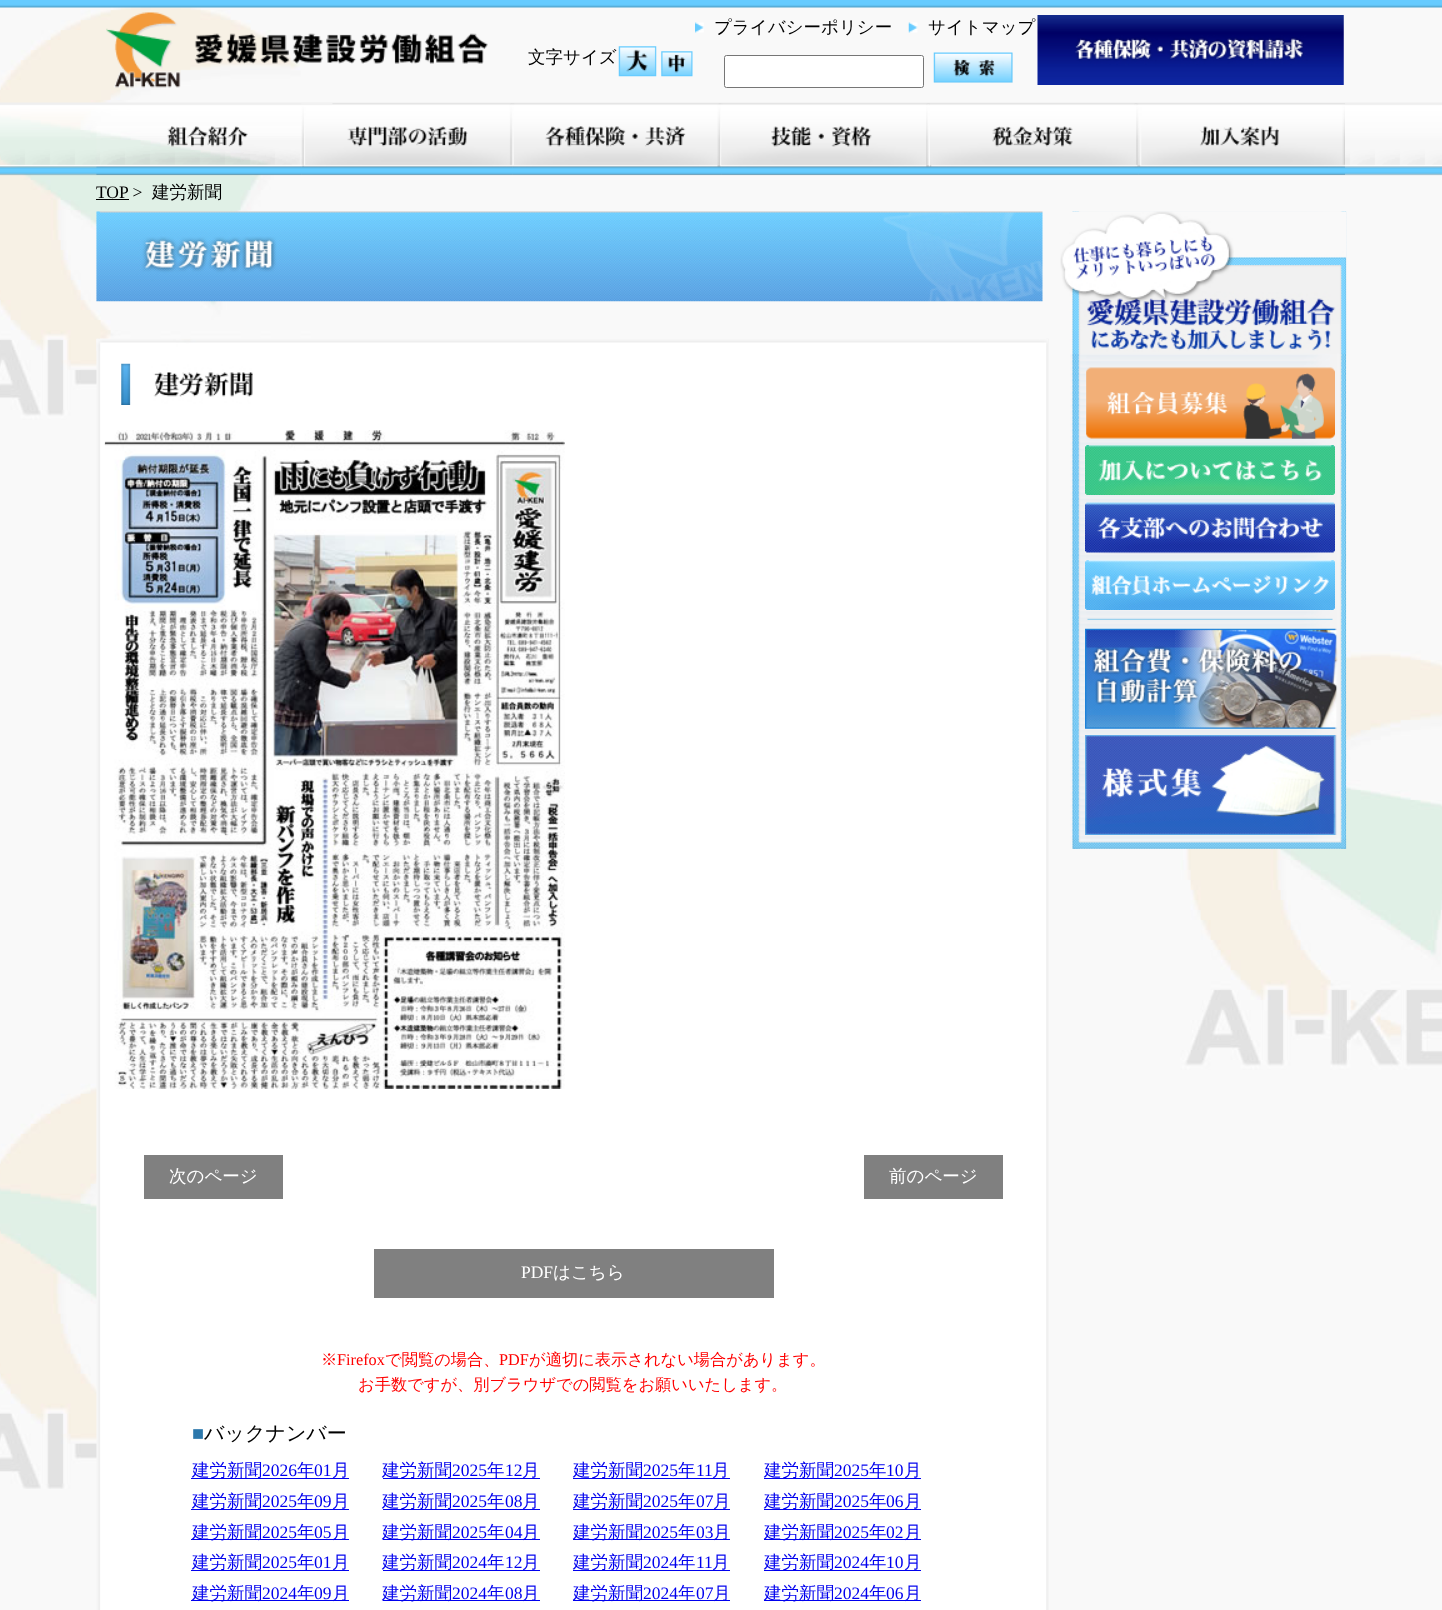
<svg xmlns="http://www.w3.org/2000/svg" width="1442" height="1610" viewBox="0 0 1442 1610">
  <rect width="100%" height="100%" fill="#f9f9f9"/>
  <image x="0" y="7" width="1442" height="1482" href="img1.png"/>
  <image x="0" y="0" width="1442" height="8" href="img2.png"/>
  <image x="106" y="12" width="382" height="76" href="img3.png"/>
  <image x="695" y="22" width="9" height="11" href="img4.png"/>
  <text x="714" y="33" font-family="WenQuanYi Zen Hei" font-size="17.5" font-weight="500" fill="#000000">プライバシーポリシー</text>
  <image x="908" y="22" width="10" height="11" href="img5.png"/>
  <text x="928" y="33" font-family="WenQuanYi Zen Hei" font-size="17.5" font-weight="500" fill="#000000">サイトマップ</text>
  <image x="1037" y="15" width="307" height="70" href="img6.png"/>
  <text x="528" y="63" font-family="WenQuanYi Zen Hei" font-size="17.5" font-weight="500" fill="#000000">文字サイズ</text>
  <image x="618" y="46" width="39" height="31" href="img7.png"/>
  <image x="661" y="51" width="32" height="26" href="img8.png"/>
  <rect x="724.5" y="55.5" width="199" height="32" rx="2" fill="#ffffff" stroke="#767676"/>
  <rect x="934" y="53" width="79" height="30" fill="#efefef"/>
  <image x="933" y="52" width="80" height="31" href="img9.png"/>
  <image x="0" y="102" width="1442" height="74" href="img10.png"/>
  <image x="96" y="126" width="206" height="49" href="img11.png"/>
  <image x="301" y="103" width="212" height="72" href="img12.png"/>
  <image x="512" y="103" width="210" height="72" href="img13.png"/>
  <image x="721" y="103" width="209" height="72" href="img14.png"/>
  <image x="930" y="103" width="209" height="72" href="img15.png"/>
  <image x="1138" y="103" width="207" height="72" href="img16.png"/>
  <text x="96" y="198" font-family="Liberation Serif" font-size="17.5" fill="#000000">TOP &gt;</text>
  <rect x="96" y="199" width="33" height="1" fill="#000000"/>
  <text x="152" y="198" font-family="WenQuanYi Zen Hei" font-size="17.5" font-weight="500" fill="#000000">建労新聞</text>
  <image x="1070" y="211" width="277" height="638" href="img17.png"/>
  <image x="1060" y="211" width="287" height="143" href="img18.png"/>
  <image x="1071" y="838" width="276" height="11" href="img19.png"/>
  <image x="1086" y="367" width="249" height="72" href="img20.png"/>
  <image x="1085" y="445" width="250" height="50" href="img21.png"/>
  <image x="1085" y="502" width="250" height="52" href="img22.png"/>
  <image x="1085" y="560" width="250" height="50" href="img23.png"/>
  <image x="1087" y="618" width="246" height="2" href="img24.png"/>
  <image x="1085" y="628" width="253" height="101" href="img25.png"/>
  <image x="1085" y="735" width="252" height="100" href="img26.png"/>
  <image x="96" y="211" width="947" height="91" href="img27.png"/>
  <image x="96" y="338" width="953" height="1272" href="img28.png"/>
  <image x="96" y="338" width="952" height="13" href="img29.png"/>
  <image x="121" y="363" width="132" height="42" href="img30.png"/>
  <image x="104" y="430" width="2" height="658" href="img31.png"/>
  <image x="104" y="430" width="461" height="659" href="img32.png"/>
  <rect x="144" y="1155" width="139" height="44" fill="#808080"/>
  <text x="169" y="1182" font-family="WenQuanYi Zen Hei" font-size="17.5" font-weight="500" fill="#ffffff">次のページ</text>
  <rect x="864" y="1155" width="139" height="44" fill="#808080"/>
  <text x="889" y="1182" font-family="WenQuanYi Zen Hei" font-size="17.5" font-weight="500" fill="#ffffff">前のページ</text>
  <rect x="374" y="1249" width="400" height="49" fill="#808080"/>
  <text x="521" y="1278" font-family="Liberation Serif" font-size="17.5" fill="#ffffff">PDF</text>
  <text x="553" y="1278" font-family="WenQuanYi Zen Hei" font-size="17.5" font-weight="500" fill="#ffffff">はこちら</text>
  <text x="321" y="1365" font-family="WenQuanYi Zen Hei" font-size="16.25" font-weight="500" fill="#ff0000">※</text>
  <text x="337" y="1365" font-family="Liberation Serif" font-size="16.25" fill="#ff0000">Firefox</text>
  <text x="385" y="1365" font-family="WenQuanYi Zen Hei" font-size="16.25" font-weight="500" fill="#ff0000">で閲覧の場合、</text>
  <text x="499" y="1365" font-family="Liberation Serif" font-size="16.25" fill="#ff0000">PDF</text>
  <text x="529" y="1365" font-family="WenQuanYi Zen Hei" font-size="16.25" font-weight="500" fill="#ff0000">が適切に表示されない場合があります。</text>
  <text x="358" y="1390" font-family="WenQuanYi Zen Hei" font-size="16.25" font-weight="500" fill="#ff0000">お手数ですが、別ブラウザでの閲覧をお願いいたします。</text>
  <text x="192" y="1440" font-family="Liberation Serif" font-size="20" fill="#2c78ac">■</text>
  <text x="204" y="1440" font-family="WenQuanYi Zen Hei" font-size="20" font-weight="500" fill="#000000">バックナンバー</text>
  <rect x="191" y="1478" width="158" height="1" fill="#0000ee"/>
  <text x="192" y="1476" font-family="WenQuanYi Zen Hei" font-size="17.5" font-weight="500" fill="#0000ee">建労新聞</text>
  <text x="262" y="1476" font-family="Liberation Serif" font-size="17.5" fill="#0000ee">2026</text>
  <text x="297" y="1476" font-family="WenQuanYi Zen Hei" font-size="17.5" font-weight="500" fill="#0000ee">年</text>
  <text x="314" y="1476" font-family="Liberation Serif" font-size="17.5" fill="#0000ee">01</text>
  <text x="332" y="1476" font-family="WenQuanYi Zen Hei" font-size="17.5" font-weight="500" fill="#0000ee">月</text>
  <rect x="383" y="1478" width="157" height="1" fill="#0000ee"/>
  <text x="382" y="1476" font-family="WenQuanYi Zen Hei" font-size="17.5" font-weight="500" fill="#0000ee">建労新聞</text>
  <text x="452" y="1476" font-family="Liberation Serif" font-size="17.5" fill="#0000ee">2025</text>
  <text x="487" y="1476" font-family="WenQuanYi Zen Hei" font-size="17.5" font-weight="500" fill="#0000ee">年</text>
  <text x="505" y="1476" font-family="Liberation Serif" font-size="17.5" fill="#0000ee">12</text>
  <text x="522" y="1476" font-family="WenQuanYi Zen Hei" font-size="17.5" font-weight="500" fill="#0000ee">月</text>
  <rect x="573" y="1478" width="157" height="1" fill="#0000ee"/>
  <text x="573" y="1476" font-family="WenQuanYi Zen Hei" font-size="17.5" font-weight="500" fill="#0000ee">建労新聞</text>
  <text x="643" y="1476" font-family="Liberation Serif" font-size="17.5" fill="#0000ee">2025</text>
  <text x="678" y="1476" font-family="WenQuanYi Zen Hei" font-size="17.5" font-weight="500" fill="#0000ee">年</text>
  <text x="696" y="1476" font-family="Liberation Serif" font-size="17.5" fill="#0000ee">11</text>
  <text x="712" y="1476" font-family="WenQuanYi Zen Hei" font-size="17.5" font-weight="500" fill="#0000ee">月</text>
  <rect x="764" y="1478" width="157" height="1" fill="#0000ee"/>
  <text x="764" y="1476" font-family="WenQuanYi Zen Hei" font-size="17.5" font-weight="500" fill="#0000ee">建労新聞</text>
  <text x="834" y="1476" font-family="Liberation Serif" font-size="17.5" fill="#0000ee">2025</text>
  <text x="869" y="1476" font-family="WenQuanYi Zen Hei" font-size="17.5" font-weight="500" fill="#0000ee">年</text>
  <text x="886" y="1476" font-family="Liberation Serif" font-size="17.5" fill="#0000ee">10</text>
  <text x="904" y="1476" font-family="WenQuanYi Zen Hei" font-size="17.5" font-weight="500" fill="#0000ee">月</text>
  <rect x="191" y="1509" width="158" height="1" fill="#0000ee"/>
  <text x="192" y="1507" font-family="WenQuanYi Zen Hei" font-size="17.5" font-weight="500" fill="#0000ee">建労新聞</text>
  <text x="262" y="1507" font-family="Liberation Serif" font-size="17.5" fill="#0000ee">2025</text>
  <text x="297" y="1507" font-family="WenQuanYi Zen Hei" font-size="17.5" font-weight="500" fill="#0000ee">年</text>
  <text x="314" y="1507" font-family="Liberation Serif" font-size="17.5" fill="#0000ee">09</text>
  <text x="332" y="1507" font-family="WenQuanYi Zen Hei" font-size="17.5" font-weight="500" fill="#0000ee">月</text>
  <rect x="383" y="1509" width="157" height="1" fill="#0000ee"/>
  <text x="382" y="1507" font-family="WenQuanYi Zen Hei" font-size="17.5" font-weight="500" fill="#0000ee">建労新聞</text>
  <text x="452" y="1507" font-family="Liberation Serif" font-size="17.5" fill="#0000ee">2025</text>
  <text x="487" y="1507" font-family="WenQuanYi Zen Hei" font-size="17.5" font-weight="500" fill="#0000ee">年</text>
  <text x="505" y="1507" font-family="Liberation Serif" font-size="17.5" fill="#0000ee">08</text>
  <text x="522" y="1507" font-family="WenQuanYi Zen Hei" font-size="17.5" font-weight="500" fill="#0000ee">月</text>
  <rect x="573" y="1509" width="157" height="1" fill="#0000ee"/>
  <text x="573" y="1507" font-family="WenQuanYi Zen Hei" font-size="17.5" font-weight="500" fill="#0000ee">建労新聞</text>
  <text x="643" y="1507" font-family="Liberation Serif" font-size="17.5" fill="#0000ee">2025</text>
  <text x="678" y="1507" font-family="WenQuanYi Zen Hei" font-size="17.5" font-weight="500" fill="#0000ee">年</text>
  <text x="696" y="1507" font-family="Liberation Serif" font-size="17.5" fill="#0000ee">07</text>
  <text x="713" y="1507" font-family="WenQuanYi Zen Hei" font-size="17.5" font-weight="500" fill="#0000ee">月</text>
  <rect x="764" y="1509" width="157" height="1" fill="#0000ee"/>
  <text x="764" y="1507" font-family="WenQuanYi Zen Hei" font-size="17.5" font-weight="500" fill="#0000ee">建労新聞</text>
  <text x="834" y="1507" font-family="Liberation Serif" font-size="17.5" fill="#0000ee">2025</text>
  <text x="869" y="1507" font-family="WenQuanYi Zen Hei" font-size="17.5" font-weight="500" fill="#0000ee">年</text>
  <text x="886" y="1507" font-family="Liberation Serif" font-size="17.5" fill="#0000ee">06</text>
  <text x="904" y="1507" font-family="WenQuanYi Zen Hei" font-size="17.5" font-weight="500" fill="#0000ee">月</text>
  <rect x="191" y="1539" width="158" height="1" fill="#0000ee"/>
  <text x="192" y="1538" font-family="WenQuanYi Zen Hei" font-size="17.5" font-weight="500" fill="#0000ee">建労新聞</text>
  <text x="262" y="1538" font-family="Liberation Serif" font-size="17.5" fill="#0000ee">2025</text>
  <text x="297" y="1538" font-family="WenQuanYi Zen Hei" font-size="17.5" font-weight="500" fill="#0000ee">年</text>
  <text x="314" y="1538" font-family="Liberation Serif" font-size="17.5" fill="#0000ee">05</text>
  <text x="332" y="1538" font-family="WenQuanYi Zen Hei" font-size="17.5" font-weight="500" fill="#0000ee">月</text>
  <rect x="383" y="1539" width="157" height="1" fill="#0000ee"/>
  <text x="382" y="1538" font-family="WenQuanYi Zen Hei" font-size="17.5" font-weight="500" fill="#0000ee">建労新聞</text>
  <text x="452" y="1538" font-family="Liberation Serif" font-size="17.5" fill="#0000ee">2025</text>
  <text x="487" y="1538" font-family="WenQuanYi Zen Hei" font-size="17.5" font-weight="500" fill="#0000ee">年</text>
  <text x="505" y="1538" font-family="Liberation Serif" font-size="17.5" fill="#0000ee">04</text>
  <text x="522" y="1538" font-family="WenQuanYi Zen Hei" font-size="17.5" font-weight="500" fill="#0000ee">月</text>
  <rect x="573" y="1539" width="157" height="1" fill="#0000ee"/>
  <text x="573" y="1538" font-family="WenQuanYi Zen Hei" font-size="17.5" font-weight="500" fill="#0000ee">建労新聞</text>
  <text x="643" y="1538" font-family="Liberation Serif" font-size="17.5" fill="#0000ee">2025</text>
  <text x="678" y="1538" font-family="WenQuanYi Zen Hei" font-size="17.5" font-weight="500" fill="#0000ee">年</text>
  <text x="696" y="1538" font-family="Liberation Serif" font-size="17.5" fill="#0000ee">03</text>
  <text x="713" y="1538" font-family="WenQuanYi Zen Hei" font-size="17.5" font-weight="500" fill="#0000ee">月</text>
  <rect x="764" y="1539" width="157" height="1" fill="#0000ee"/>
  <text x="764" y="1538" font-family="WenQuanYi Zen Hei" font-size="17.5" font-weight="500" fill="#0000ee">建労新聞</text>
  <text x="834" y="1538" font-family="Liberation Serif" font-size="17.5" fill="#0000ee">2025</text>
  <text x="869" y="1538" font-family="WenQuanYi Zen Hei" font-size="17.5" font-weight="500" fill="#0000ee">年</text>
  <text x="886" y="1538" font-family="Liberation Serif" font-size="17.5" fill="#0000ee">02</text>
  <text x="904" y="1538" font-family="WenQuanYi Zen Hei" font-size="17.5" font-weight="500" fill="#0000ee">月</text>
  <rect x="191" y="1570" width="158" height="1" fill="#0000ee"/>
  <text x="192" y="1568" font-family="WenQuanYi Zen Hei" font-size="17.5" font-weight="500" fill="#0000ee">建労新聞</text>
  <text x="262" y="1568" font-family="Liberation Serif" font-size="17.5" fill="#0000ee">2025</text>
  <text x="297" y="1568" font-family="WenQuanYi Zen Hei" font-size="17.5" font-weight="500" fill="#0000ee">年</text>
  <text x="314" y="1568" font-family="Liberation Serif" font-size="17.5" fill="#0000ee">01</text>
  <text x="332" y="1568" font-family="WenQuanYi Zen Hei" font-size="17.5" font-weight="500" fill="#0000ee">月</text>
  <rect x="383" y="1570" width="157" height="1" fill="#0000ee"/>
  <text x="382" y="1568" font-family="WenQuanYi Zen Hei" font-size="17.5" font-weight="500" fill="#0000ee">建労新聞</text>
  <text x="452" y="1568" font-family="Liberation Serif" font-size="17.5" fill="#0000ee">2024</text>
  <text x="487" y="1568" font-family="WenQuanYi Zen Hei" font-size="17.5" font-weight="500" fill="#0000ee">年</text>
  <text x="505" y="1568" font-family="Liberation Serif" font-size="17.5" fill="#0000ee">12</text>
  <text x="522" y="1568" font-family="WenQuanYi Zen Hei" font-size="17.5" font-weight="500" fill="#0000ee">月</text>
  <rect x="573" y="1570" width="157" height="1" fill="#0000ee"/>
  <text x="573" y="1568" font-family="WenQuanYi Zen Hei" font-size="17.5" font-weight="500" fill="#0000ee">建労新聞</text>
  <text x="643" y="1568" font-family="Liberation Serif" font-size="17.5" fill="#0000ee">2024</text>
  <text x="678" y="1568" font-family="WenQuanYi Zen Hei" font-size="17.5" font-weight="500" fill="#0000ee">年</text>
  <text x="696" y="1568" font-family="Liberation Serif" font-size="17.5" fill="#0000ee">11</text>
  <text x="712" y="1568" font-family="WenQuanYi Zen Hei" font-size="17.5" font-weight="500" fill="#0000ee">月</text>
  <rect x="764" y="1570" width="157" height="1" fill="#0000ee"/>
  <text x="764" y="1568" font-family="WenQuanYi Zen Hei" font-size="17.5" font-weight="500" fill="#0000ee">建労新聞</text>
  <text x="834" y="1568" font-family="Liberation Serif" font-size="17.5" fill="#0000ee">2024</text>
  <text x="869" y="1568" font-family="WenQuanYi Zen Hei" font-size="17.5" font-weight="500" fill="#0000ee">年</text>
  <text x="886" y="1568" font-family="Liberation Serif" font-size="17.5" fill="#0000ee">10</text>
  <text x="904" y="1568" font-family="WenQuanYi Zen Hei" font-size="17.5" font-weight="500" fill="#0000ee">月</text>
  <rect x="191" y="1600" width="158" height="1" fill="#0000ee"/>
  <text x="192" y="1599" font-family="WenQuanYi Zen Hei" font-size="17.5" font-weight="500" fill="#0000ee">建労新聞</text>
  <text x="262" y="1599" font-family="Liberation Serif" font-size="17.5" fill="#0000ee">2024</text>
  <text x="297" y="1599" font-family="WenQuanYi Zen Hei" font-size="17.5" font-weight="500" fill="#0000ee">年</text>
  <text x="314" y="1599" font-family="Liberation Serif" font-size="17.5" fill="#0000ee">09</text>
  <text x="332" y="1599" font-family="WenQuanYi Zen Hei" font-size="17.5" font-weight="500" fill="#0000ee">月</text>
  <rect x="383" y="1600" width="157" height="1" fill="#0000ee"/>
  <text x="382" y="1599" font-family="WenQuanYi Zen Hei" font-size="17.5" font-weight="500" fill="#0000ee">建労新聞</text>
  <text x="452" y="1599" font-family="Liberation Serif" font-size="17.5" fill="#0000ee">2024</text>
  <text x="487" y="1599" font-family="WenQuanYi Zen Hei" font-size="17.5" font-weight="500" fill="#0000ee">年</text>
  <text x="505" y="1599" font-family="Liberation Serif" font-size="17.5" fill="#0000ee">08</text>
  <text x="522" y="1599" font-family="WenQuanYi Zen Hei" font-size="17.5" font-weight="500" fill="#0000ee">月</text>
  <rect x="573" y="1600" width="157" height="1" fill="#0000ee"/>
  <text x="573" y="1599" font-family="WenQuanYi Zen Hei" font-size="17.5" font-weight="500" fill="#0000ee">建労新聞</text>
  <text x="643" y="1599" font-family="Liberation Serif" font-size="17.5" fill="#0000ee">2024</text>
  <text x="678" y="1599" font-family="WenQuanYi Zen Hei" font-size="17.5" font-weight="500" fill="#0000ee">年</text>
  <text x="696" y="1599" font-family="Liberation Serif" font-size="17.5" fill="#0000ee">07</text>
  <text x="713" y="1599" font-family="WenQuanYi Zen Hei" font-size="17.5" font-weight="500" fill="#0000ee">月</text>
  <rect x="764" y="1600" width="157" height="1" fill="#0000ee"/>
  <text x="764" y="1599" font-family="WenQuanYi Zen Hei" font-size="17.5" font-weight="500" fill="#0000ee">建労新聞</text>
  <text x="834" y="1599" font-family="Liberation Serif" font-size="17.5" fill="#0000ee">2024</text>
  <text x="869" y="1599" font-family="WenQuanYi Zen Hei" font-size="17.5" font-weight="500" fill="#0000ee">年</text>
  <text x="886" y="1599" font-family="Liberation Serif" font-size="17.5" fill="#0000ee">06</text>
  <text x="904" y="1599" font-family="WenQuanYi Zen Hei" font-size="17.5" font-weight="500" fill="#0000ee">月</text>
</svg>
